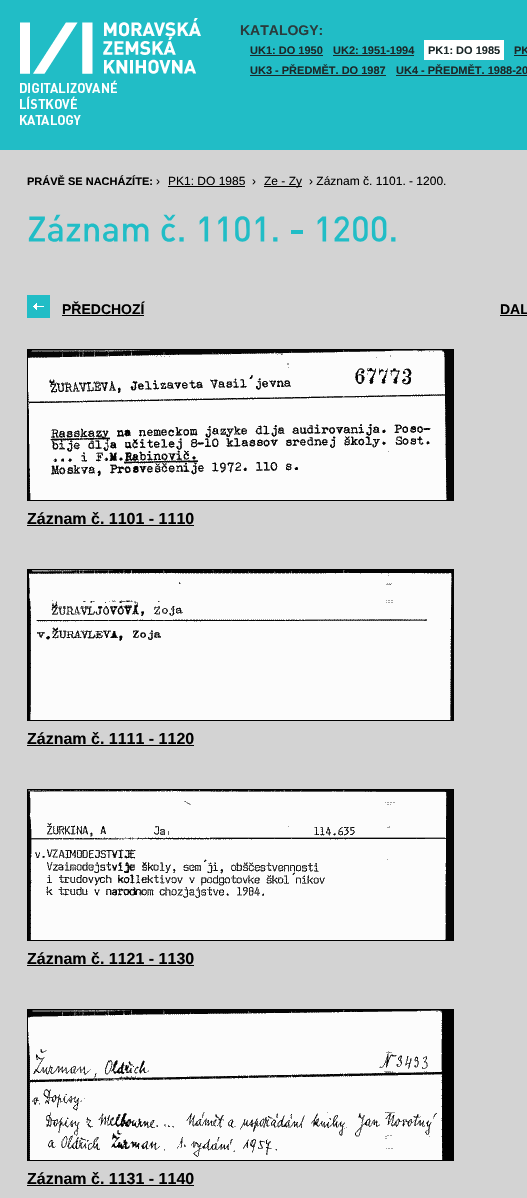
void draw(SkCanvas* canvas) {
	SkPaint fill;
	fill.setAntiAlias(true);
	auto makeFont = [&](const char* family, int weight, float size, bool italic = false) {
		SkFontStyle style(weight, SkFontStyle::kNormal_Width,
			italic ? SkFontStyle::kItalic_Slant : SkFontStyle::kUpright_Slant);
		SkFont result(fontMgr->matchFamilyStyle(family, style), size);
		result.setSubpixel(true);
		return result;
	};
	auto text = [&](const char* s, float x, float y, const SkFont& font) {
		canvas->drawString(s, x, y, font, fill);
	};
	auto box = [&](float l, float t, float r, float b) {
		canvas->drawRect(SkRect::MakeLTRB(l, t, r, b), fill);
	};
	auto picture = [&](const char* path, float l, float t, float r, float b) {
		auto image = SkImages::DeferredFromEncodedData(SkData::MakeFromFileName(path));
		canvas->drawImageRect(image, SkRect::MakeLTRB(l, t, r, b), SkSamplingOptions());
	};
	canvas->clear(0xFFD3D3D3);
	fill.setColor(0xFF21BDC6);
	box(0, 0, 527, 150);
	picture("image0.png", 20, 18, 201, 125);
	fill.setColor(0xFF1C2829);
	box(250, 55, 323, 56);
	box(333, 55, 414, 56);
	fill.setColor(0xFFFFFFFF);
	box(424, 40, 504, 60);
	fill.setColor(0xFF1C2829);
	box(514, 55, 527, 56);
	box(250, 75, 386, 76);
	box(396, 75, 527, 76);
	fill.setColor(0xFF000000);
	box(168, 186, 245, 187);
	box(264, 186, 302, 187);
	picture("image1.png", 28, 214, 149, 242);
	picture("image2.png", 161, 214, 184, 242);
	picture("image3.png", 199, 216, 278, 242);
	fill.setColor(0xFF21BDC6);
	box(291, 230, 303, 234);
	picture("image4.png", 317, 216, 396, 242);
	picture("image5.png", 27, 295, 50, 318);
	fill.setColor(0xFF000000);
	box(62, 315, 144, 316);
	box(500, 315, 527, 316);
	box(27, 349, 454, 501);
	picture("image6.png", 28, 350, 453, 500);
	box(27, 525, 194, 526);
	box(27, 569, 454, 721);
	picture("image7.png", 29, 570, 452, 720);
	box(27, 745, 194, 746);
	box(27, 789, 454, 941);
	picture("image8.png", 28, 790, 453, 940);
	box(27, 965, 194, 966);
	box(27, 1009, 454, 1161);
	picture("image9.png", 28, 1010, 443, 1160);
	box(27, 1185, 194, 1186);
	auto font1 = makeFont("Liberation Sans", 700, 14);
	fill.setColor(0xFF2A3C3D);
	text("KATALOGY:", 240, 35, font1);
	auto font2 = makeFont("Liberation Sans", 700, 11);
	fill.setColor(0xFF1C2829);
	text("UK1: DO 1950", 250, 54, font2);
	text("UK2: 1951-1994", 333, 54, font2);
	text("PK1: DO 1985", 428, 54, font2);
	text("PK", 514, 54, font2);
	text("UK3 - PŘEDMĚT. DO 1987", 250, 74, font2);
	text("UK4 - PŘEDMĚT. 1988-20", 396, 74, font2);
	fill.setColor(0xFF000000);
	text("PRÁVĚ SE NACHÁZÍTE:", 27, 185, font2);
	auto font3 = makeFont("Liberation Sans", 400, 12);
	text("›", 156, 185, font3);
	text("PK1: DO 1985", 168, 185, font3);
	text("›", 252, 185, font3);
	text("Ze - Zy", 264, 185, font3);
	text("› Záznam č. 1101. - 1200.", 309, 185, font3);
	text("PŘEDCHOZÍ", 62, 314, font1);
	text("DAL", 500, 314, font1);
	auto font4 = makeFont("Liberation Sans", 700, 16);
	text("Záznam č. 1101 - 1110", 27, 524, font4);
	text("Záznam č. 1111 - 1120", 27, 744, font4);
	text("Záznam č. 1121 - 1130", 27, 964, font4);
	text("Záznam č. 1131 - 1140", 27, 1184, font4);
}
